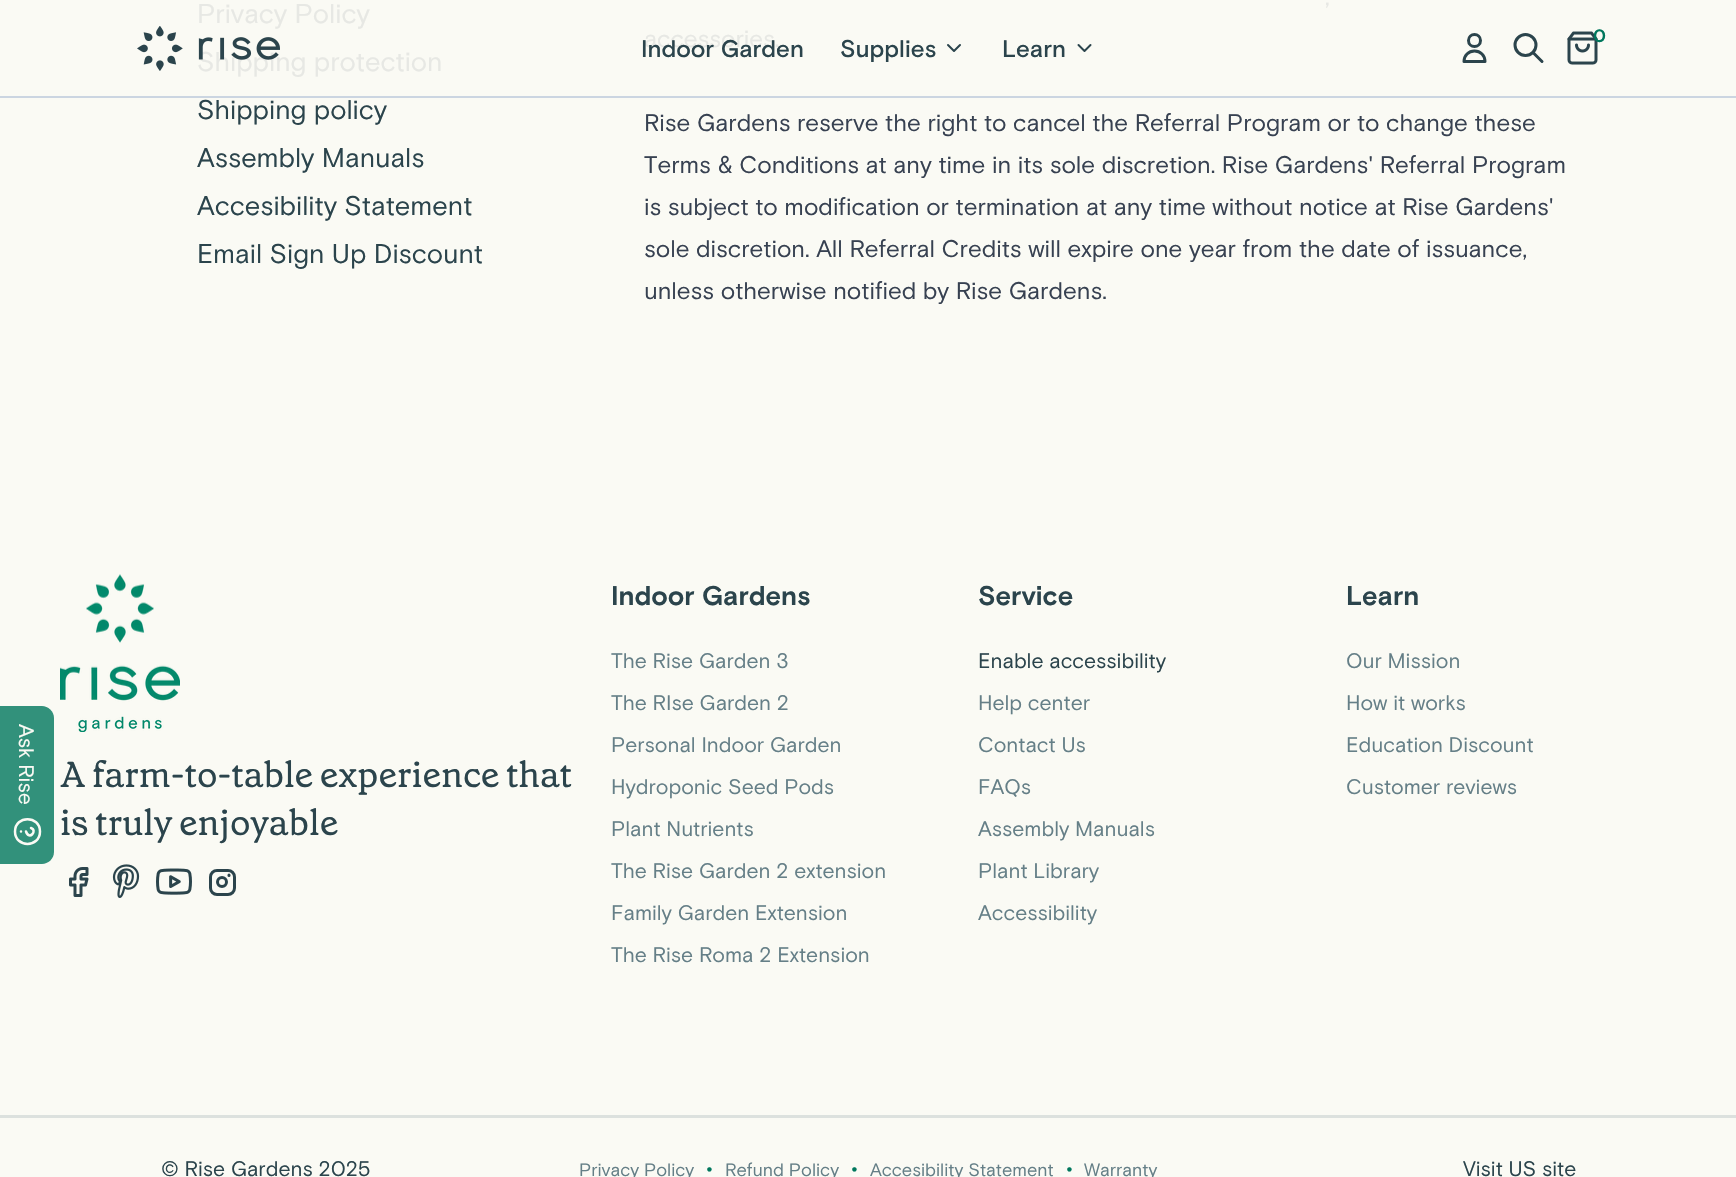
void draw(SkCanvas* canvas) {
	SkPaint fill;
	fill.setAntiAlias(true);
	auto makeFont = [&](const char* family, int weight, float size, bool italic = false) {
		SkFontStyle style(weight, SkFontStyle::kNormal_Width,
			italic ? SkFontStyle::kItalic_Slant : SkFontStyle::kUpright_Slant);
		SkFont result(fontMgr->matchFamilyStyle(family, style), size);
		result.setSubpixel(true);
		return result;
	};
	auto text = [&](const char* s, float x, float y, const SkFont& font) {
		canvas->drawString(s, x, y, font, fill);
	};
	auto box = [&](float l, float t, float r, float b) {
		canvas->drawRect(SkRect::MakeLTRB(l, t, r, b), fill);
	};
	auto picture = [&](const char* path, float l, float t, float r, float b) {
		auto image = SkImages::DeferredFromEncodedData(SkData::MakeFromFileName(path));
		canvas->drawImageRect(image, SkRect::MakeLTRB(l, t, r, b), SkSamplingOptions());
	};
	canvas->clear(0xFFFAFAF4);
	fill.setColor(0xFFCBD5E1);
	box(0, 96, 1736, 98);
	fill.setStyle(SkPaint::kStroke_Style);
	fill.setStrokeWidth(3);
	fill.setStrokeCap(SkPaint::kRound_Cap);
	fill.setStrokeJoin(SkPaint::kRound_Join);
	fill.setColor(0xFF2B444C);
	canvas->drawPath(SkPathBuilder().moveTo(1480.5f, 40.5f).cubicTo(1480.5f, 48.5f, 1468.5f, 48.5f, 1468.5f, 40.5f).cubicTo(1468.5f, 32.5f, 1480.5f, 32.5f, 1480.5f, 40.5f).close().moveTo(1474.5f, 51).cubicTo(1468.5f, 51, 1464, 55.5f, 1464, 61.5f).lineTo(1485, 61.5f).cubicTo(1485, 55.5f, 1480.5f, 51, 1474.5f, 51).close().detach(), fill);
	fill.setStrokeCap(SkPaint::kButt_Cap);
	fill.setStrokeJoin(SkPaint::kMiter_Join);
	canvas->drawCircle(1525.5f, 45, 10.5f, fill);
	fill.setStrokeCap(SkPaint::kRound_Cap);
	fill.setStrokeJoin(SkPaint::kRound_Join);
	canvas->drawPath(SkPathBuilder().moveTo(1542, 61.5f).lineTo(1533, 52.5f).detach(), fill);
	picture("image1.png", 1567, 31, 1598, 65);
	fill.setStrokeWidth(2);
	canvas->drawPath(SkPathBuilder().moveTo(948, 45).lineTo(954, 51).lineTo(960, 45).detach(), fill);
	canvas->drawPath(SkPathBuilder().moveTo(1078.5f, 45).lineTo(1084.5f, 51).lineTo(1090.5f, 45).detach(), fill);
	fill.setStyle(SkPaint::kFill_Style);
	fill.setColor(0xFF32917B);
	canvas->drawPath(SkPathBuilder().moveTo(54, 718).lineTo(54, 852).cubicTo(54, 859, 48, 864, 42, 864).lineTo(0, 864).lineTo(0, 706).lineTo(42, 706).cubicTo(48, 706, 54, 711, 54, 718).close().detach(), fill);
	fill.setStyle(SkPaint::kStroke_Style);
	fill.setStrokeWidth(2.5f);
	fill.setColor(0xFFFAFAF4);
	canvas->drawPath(SkPathBuilder().moveTo(40, 831.5f).cubicTo(40, 848, 15, 848, 15, 831.5f).cubicTo(15, 815, 40, 815, 40, 831.5f).close().moveTo(31, 828).cubicTo(38, 830.5f, 29, 841, 26, 831.5f).moveTo(21, 831.5f).lineTo(21, 831.5f).detach(), fill);
	picture("image2.png", 60, 574, 180, 732);
	picture("image3.png", 69, 867, 89, 897);
	picture("image4.png", 112, 864, 140, 898);
	picture("image5.png", 156, 868, 192, 895);
	fill.setStrokeWidth(3);
	fill.setStrokeCap(SkPaint::kButt_Cap);
	fill.setStrokeJoin(SkPaint::kMiter_Join);
	fill.setColor(0xFF2B444C);
	canvas->drawRoundRect(SkRect::MakeLTRB(210.5f, 870.5f, 234.5f, 894.5f), 6.5f, 6.5f, fill);
	canvas->drawCircle(222, 882, 4.5f, fill);
	fill.setStrokeCap(SkPaint::kRound_Cap);
	fill.setStrokeJoin(SkPaint::kRound_Join);
	canvas->drawPath(SkPathBuilder().moveTo(229, 875).lineTo(229, 875.5f).detach(), fill);
	fill.setStyle(SkPaint::kFill_Style);
	fill.setColor(0xFFDCE1DE);
	box(0, 1115, 1736, 1118);
	auto font1 = makeFont("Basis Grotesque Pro", 400, 27);
	fill.setColor(0xFFE7E8E4);
	text("Privacy Policy", 197, 23, font1);
	text("Shipping protection", 197, 71, font1);
	fill.setColor(0xFF2B444C);
	text("Shipping policy", 197, 119, font1);
	text("Assembly Manuals", 197, 167, font1);
	text("Accesibility Statement", 197, 215, font1);
	text("Email Sign Up Discount", 197, 263, font1);
	auto font2 = makeFont("Basis Grotesque Pro", 400, 24);
	fill.setColor(0xFFE7E8E4);
	text(",", 1325, 5, font2);
	text("accessories.", 644, 47, font2);
	fill.setColor(0xFF374151);
	text("Rise Gardens reserve the right to cancel the Referral Program or to change these", 644, 131, font2);
	text("Terms & Conditions at any time in its sole discretion. Rise Gardens' Referral Program", 644, 173, font2);
	text("is subject to modification or termination at any time without notice at Rise Gardens'", 644, 215, font2);
	text("sole discretion. All Referral Credits will expire one year from the date of issuance,", 644, 257, font2);
	text("unless otherwise notified by Rise Gardens.", 644, 299, font2);
	picture("image0.png", 137, 26, 280, 71);
	auto font3 = makeFont("Basis Grotesque Pro", 700, 18);
	fill.setColor(0xFF00775D);
	text("0", 1593, 42, font3);
	auto font4 = makeFont("Basis Grotesque Pro", 500, 24);
	fill.setColor(0xFF2B444C);
	text("Indoor Garden", 641, 57, font4);
	text("Supplies", 840, 57, font4);
	text("Learn", 1002, 57, font4);
	auto font5 = makeFont("Basis Grotesque Pro", 400, 21);
	fill.setColor(0xFFFAFAF4);
	canvas->save();
	canvas->rotate(90, 19, 724);
	text("Ask Rise", 19, 724, font5);
	canvas->restore();
	auto font6 = makeFont("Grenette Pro", 400, 36);
	fill.setColor(0xFF2B444C);
	text("A farm-to-table experience that", 60, 787, font6);
	text("is truly enjoyable", 60, 835, font6);
	auto font7 = makeFont("Basis Grotesque Pro", 700, 27);
	text("Indoor Gardens", 611, 605, font7);
	fill.setColor(0xFF657F87);
	text("The Rise Garden 3", 611, 668, font5);
	text("The RIse Garden 2", 611, 710, font5);
	text("Personal Indoor Garden", 611, 752, font5);
	text("Hydroponic Seed Pods", 611, 794, font5);
	text("Plant Nutrients", 611, 836, font5);
	text("The Rise Garden 2 extension", 611, 878, font5);
	text("Family Garden Extension", 611, 920, font5);
	text("The Rise Roma 2 Extension", 611, 962, font5);
	fill.setColor(0xFF2B444C);
	text("Service", 978, 605, font7);
	text("Enable accessibility", 978, 668, font5);
	fill.setColor(0xFF657F87);
	text("Help center", 978, 710, font5);
	text("Contact Us", 978, 752, font5);
	text("FAQs", 978, 794, font5);
	text("Assembly Manuals", 978, 836, font5);
	text("Plant Library", 978, 878, font5);
	text("Accessibility", 978, 920, font5);
	fill.setColor(0xFF2B444C);
	text("Learn", 1346, 605, font7);
	fill.setColor(0xFF657F87);
	text("Our Mission", 1346, 668, font5);
	text("How it works", 1346, 710, font5);
	text("Education Discount", 1346, 752, font5);
	text("Customer reviews", 1346, 794, font5);
	auto font8 = makeFont("Basis Grotesque Pro", 400, 18);
	text("Privacy Policy", 579, 1176, font8);
	fill.setColor(0xFF00775D);
	text("•", 706, 1176, font2);
	fill.setColor(0xFF657F87);
	text("Refund Policy", 725, 1176, font8);
	fill.setColor(0xFF00775D);
	text("•", 851, 1176, font2);
	fill.setColor(0xFF657F87);
	text("Accesibility Statement", 870, 1176, font8);
	fill.setColor(0xFF00775D);
	text("•", 1066, 1176, font2);
	fill.setColor(0xFF657F87);
	text("Warranty", 1084, 1176, font8);
	fill.setColor(0xFF2B444C);
	text("© Rise Gardens 2025", 161, 1176, font5);
	text("Visit US site", 1463, 1176, font5);
}
